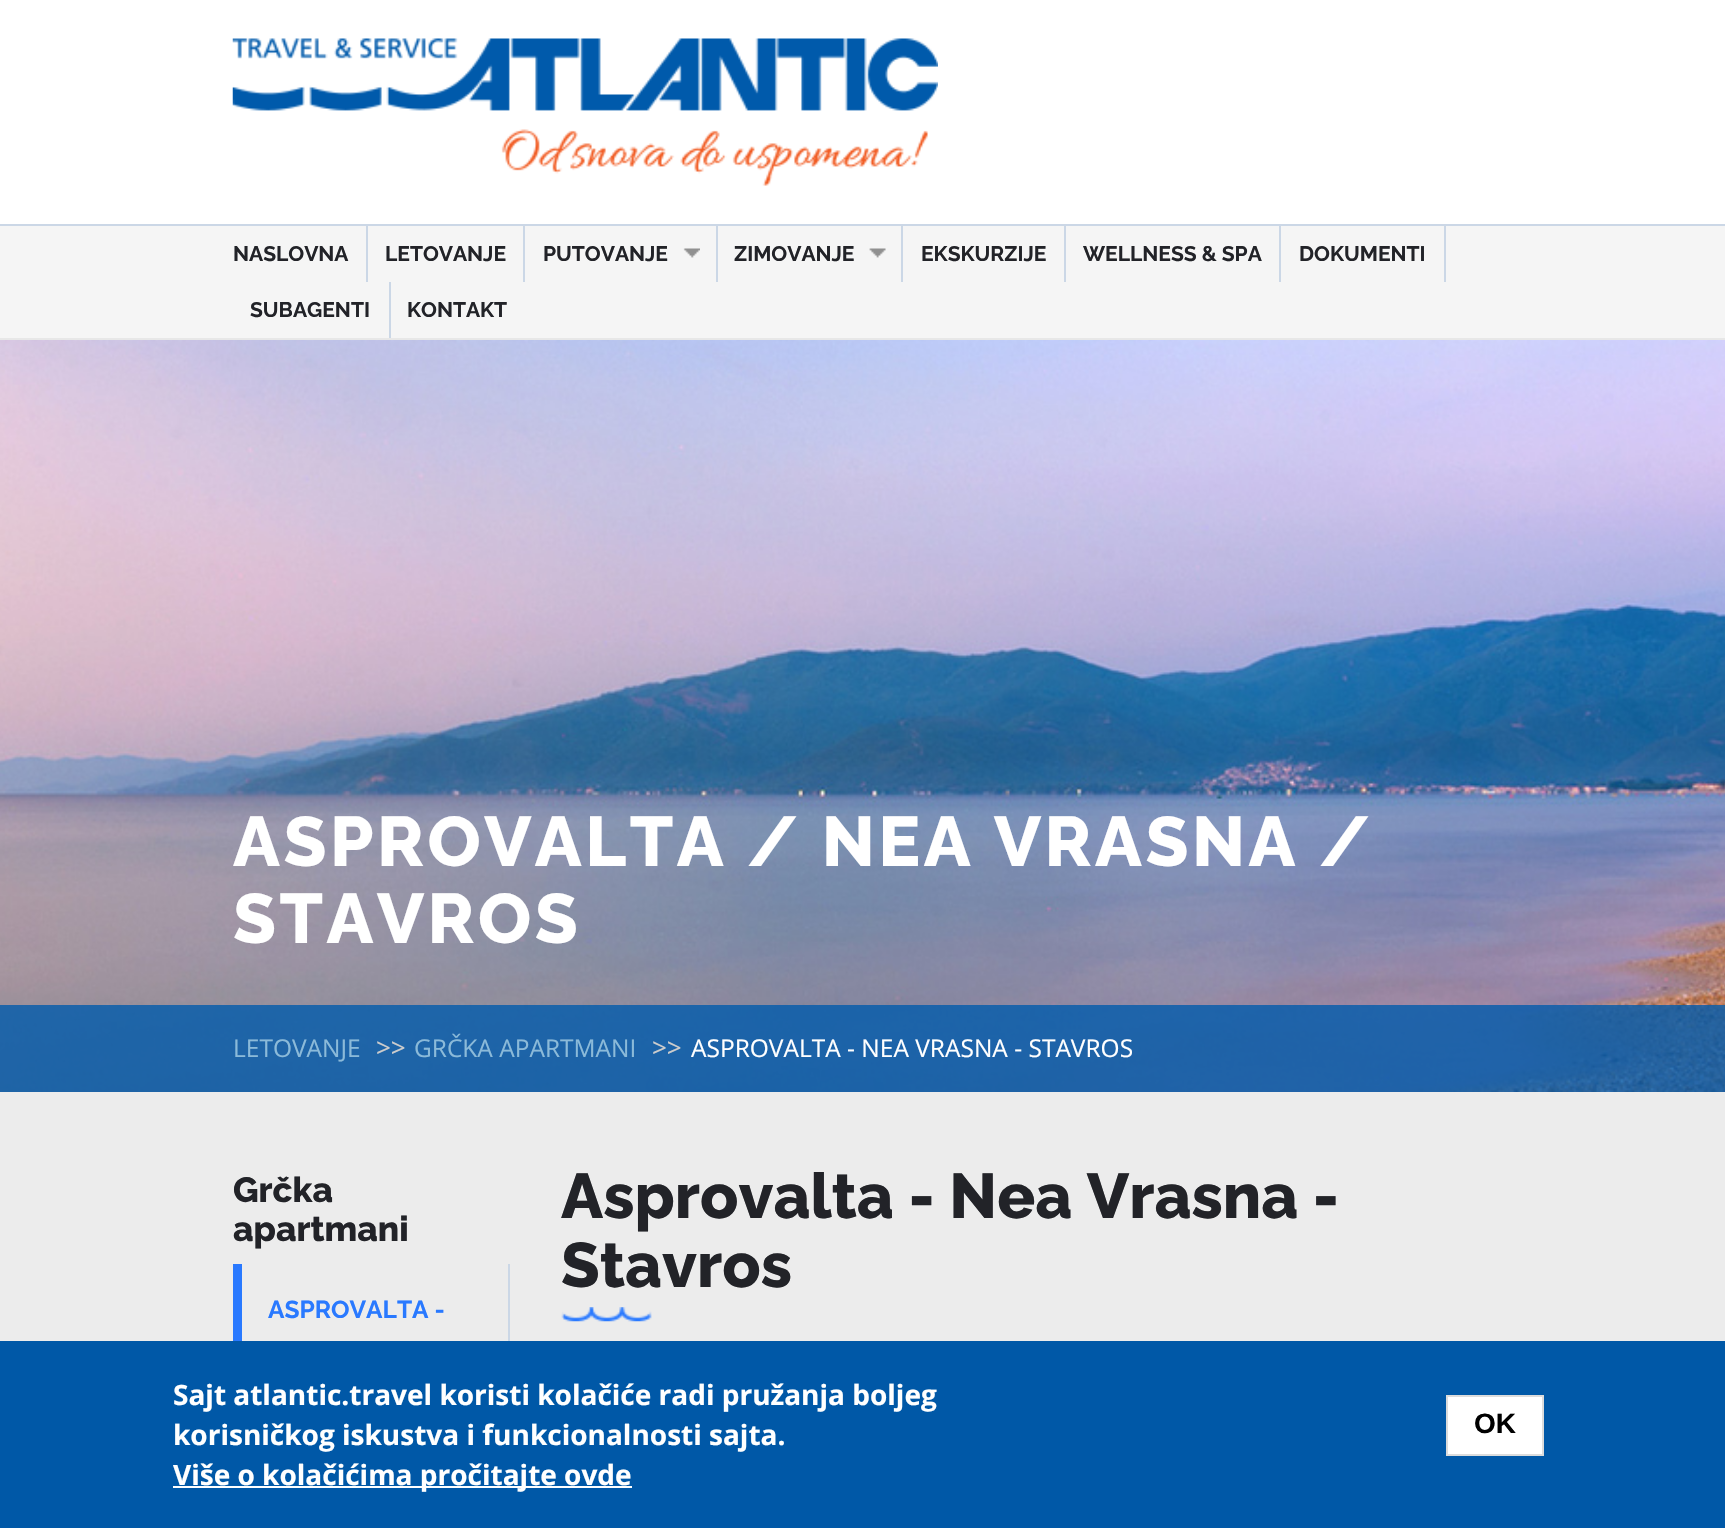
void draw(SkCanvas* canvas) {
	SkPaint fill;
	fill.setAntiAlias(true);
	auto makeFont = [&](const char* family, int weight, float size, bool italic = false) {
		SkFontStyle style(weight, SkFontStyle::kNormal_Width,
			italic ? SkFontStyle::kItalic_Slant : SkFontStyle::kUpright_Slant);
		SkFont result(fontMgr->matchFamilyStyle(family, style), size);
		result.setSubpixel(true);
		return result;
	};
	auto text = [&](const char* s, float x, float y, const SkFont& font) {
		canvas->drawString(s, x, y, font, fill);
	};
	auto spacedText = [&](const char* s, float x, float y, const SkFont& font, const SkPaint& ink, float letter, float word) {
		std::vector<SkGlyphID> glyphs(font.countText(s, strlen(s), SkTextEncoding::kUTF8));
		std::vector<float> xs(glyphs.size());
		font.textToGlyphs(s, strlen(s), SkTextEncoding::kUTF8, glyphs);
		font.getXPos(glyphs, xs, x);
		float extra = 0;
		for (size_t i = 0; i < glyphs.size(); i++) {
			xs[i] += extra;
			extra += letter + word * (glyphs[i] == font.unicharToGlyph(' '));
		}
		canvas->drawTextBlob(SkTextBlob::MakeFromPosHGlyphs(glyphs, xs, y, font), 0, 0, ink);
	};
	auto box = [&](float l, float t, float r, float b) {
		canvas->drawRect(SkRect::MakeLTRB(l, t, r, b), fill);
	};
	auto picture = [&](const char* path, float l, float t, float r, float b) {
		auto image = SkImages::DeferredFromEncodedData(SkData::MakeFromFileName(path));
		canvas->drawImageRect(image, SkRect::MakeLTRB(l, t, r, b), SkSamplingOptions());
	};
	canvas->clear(0xFFFFFFFF);
	fill.setColor(0xFFE7E7E7);
	box(0, 338, 1725, 340);
	picture("image0.png", 232, 38, 938, 186);
	fill.setColor(0xFFF5F5F5);
	box(0, 226, 1725, 338);
	fill.setColor(0xFFCBD7E6);
	box(0, 224, 1725, 226);
	box(366, 226, 368, 282);
	box(523, 226, 525, 282);
	box(716, 226, 718, 282);
	picture("image1.png", 683, 248, 700, 258);
	box(901, 226, 903, 282);
	picture("image2.png", 869, 248, 886, 258);
	box(1064, 226, 1066, 282);
	box(1279, 226, 1281, 282);
	box(1444, 226, 1446, 282);
	box(389, 282, 391, 338);
	fill.setColor(0xFFECECEC);
	box(0, 1092, 1725, 1341);
	picture("image3.png", 0, 340, 1725, 1092);
	fill.setColor(0xCC005AAB);
	box(0, 1005, 1725, 1092);
	fill.setColor(0xFFCBD7E6);
	box(508, 1264, 510, 1341);
	fill.setColor(0xFF2979FF);
	box(233, 1264, 242, 1341);
	picture("image4.png", 561, 1307, 652, 1322);
	fill.setColor(0xFF0058A7);
	box(0, 1341, 1725, 1528);
	fill.setColor(0xFFFFFFFF);
	box(173, 1486, 632, 1488);
	canvas->drawRect(SkRect::MakeLTRB(1447, 1396, 1543, 1455), fill);
	fill.setStyle(SkPaint::kStroke_Style);
	fill.setStrokeWidth(2);
	fill.setColor(0xFFDCDCDC);
	canvas->drawRect(SkRect::MakeLTRB(1447, 1396, 1543, 1455), fill);
	auto font1 = makeFont("Raleway", 700, 21);
	fill.setStyle(SkPaint::kFill_Style);
	fill.setColor(0xFF222328);
	text("NASLOVNA", 233, 261, font1);
	text("LETOVANJE", 385, 261, font1);
	text("PUTOVANJE", 543, 261, font1);
	text("ZIMOVANJE", 734, 261, font1);
	text("EKSKURZIJE", 921, 261, font1);
	text("WELLNESS & SPA", 1083, 261, font1);
	text("DOKUMENTI", 1299, 261, font1);
	text("SUBAGENTI", 250, 317, font1);
	text("KONTAKT", 407, 317, font1);
	auto font2 = makeFont("Raleway", 800, 70);
	fill.setColor(0xFFFFFFFF);
	spacedText("ASPROVALTA / NEA VRASNA /", 233, 866, font2, fill, 3.5f, 0);
	spacedText("STAVROS", 233, 943, font2, fill, 3.5f, 0);
	auto font3 = makeFont("Open Sans", 400, 24.5f);
	fill.setColor(0xFF8BBAD9);
	text("LETOVANJE", 233, 1057, font3);
	auto font4 = makeFont("Open Sans", 400, 26);
	fill.setColor(0xFFCCCCCC);
	text(">>", 376, 1057, font4);
	fill.setColor(0xFF8BBAD9);
	text("GRČKA APARTMANI", 414, 1057, font3);
	fill.setColor(0xFFCCCCCC);
	text(">>", 652, 1057, font4);
	fill.setColor(0xFFFFFFFF);
	text("ASPROVALTA - NEA VRASNA - STAVROS", 691, 1057, font3);
	auto font5 = makeFont("Raleway", 800, 35);
	fill.setColor(0xFF222328);
	text("Grčka", 233, 1202, font5);
	text("apartmani", 233, 1241, font5);
	auto font6 = makeFont("Raleway", 700, 24.5f);
	fill.setColor(0xFF2979FF);
	text("ASPROVALTA -", 268, 1318, font6);
	auto font7 = makeFont("Raleway", 800, 63);
	fill.setColor(0xFF222328);
	text("Asprovalta - Nea Vrasna -", 561, 1218, font7);
	text("Stavros", 561, 1287, font7);
	auto font8 = makeFont("Open Sans", 700, 28);
	fill.setColor(0xFFFFFFFF);
	text("Sajt atlantic.travel koristi kolačiće radi pružanja boljeg", 173, 1405, font8);
	text("korisničkog iskustva i funkcionalnosti sajta.", 173, 1445, font8);
	text("Više o kolačićima pročitajte ovde", 173, 1485, font8);
	auto font9 = makeFont("Liberation Sans", 700, 28);
	fill.setColor(0xFF000000);
	text("OK", 1474, 1433, font9);
}
